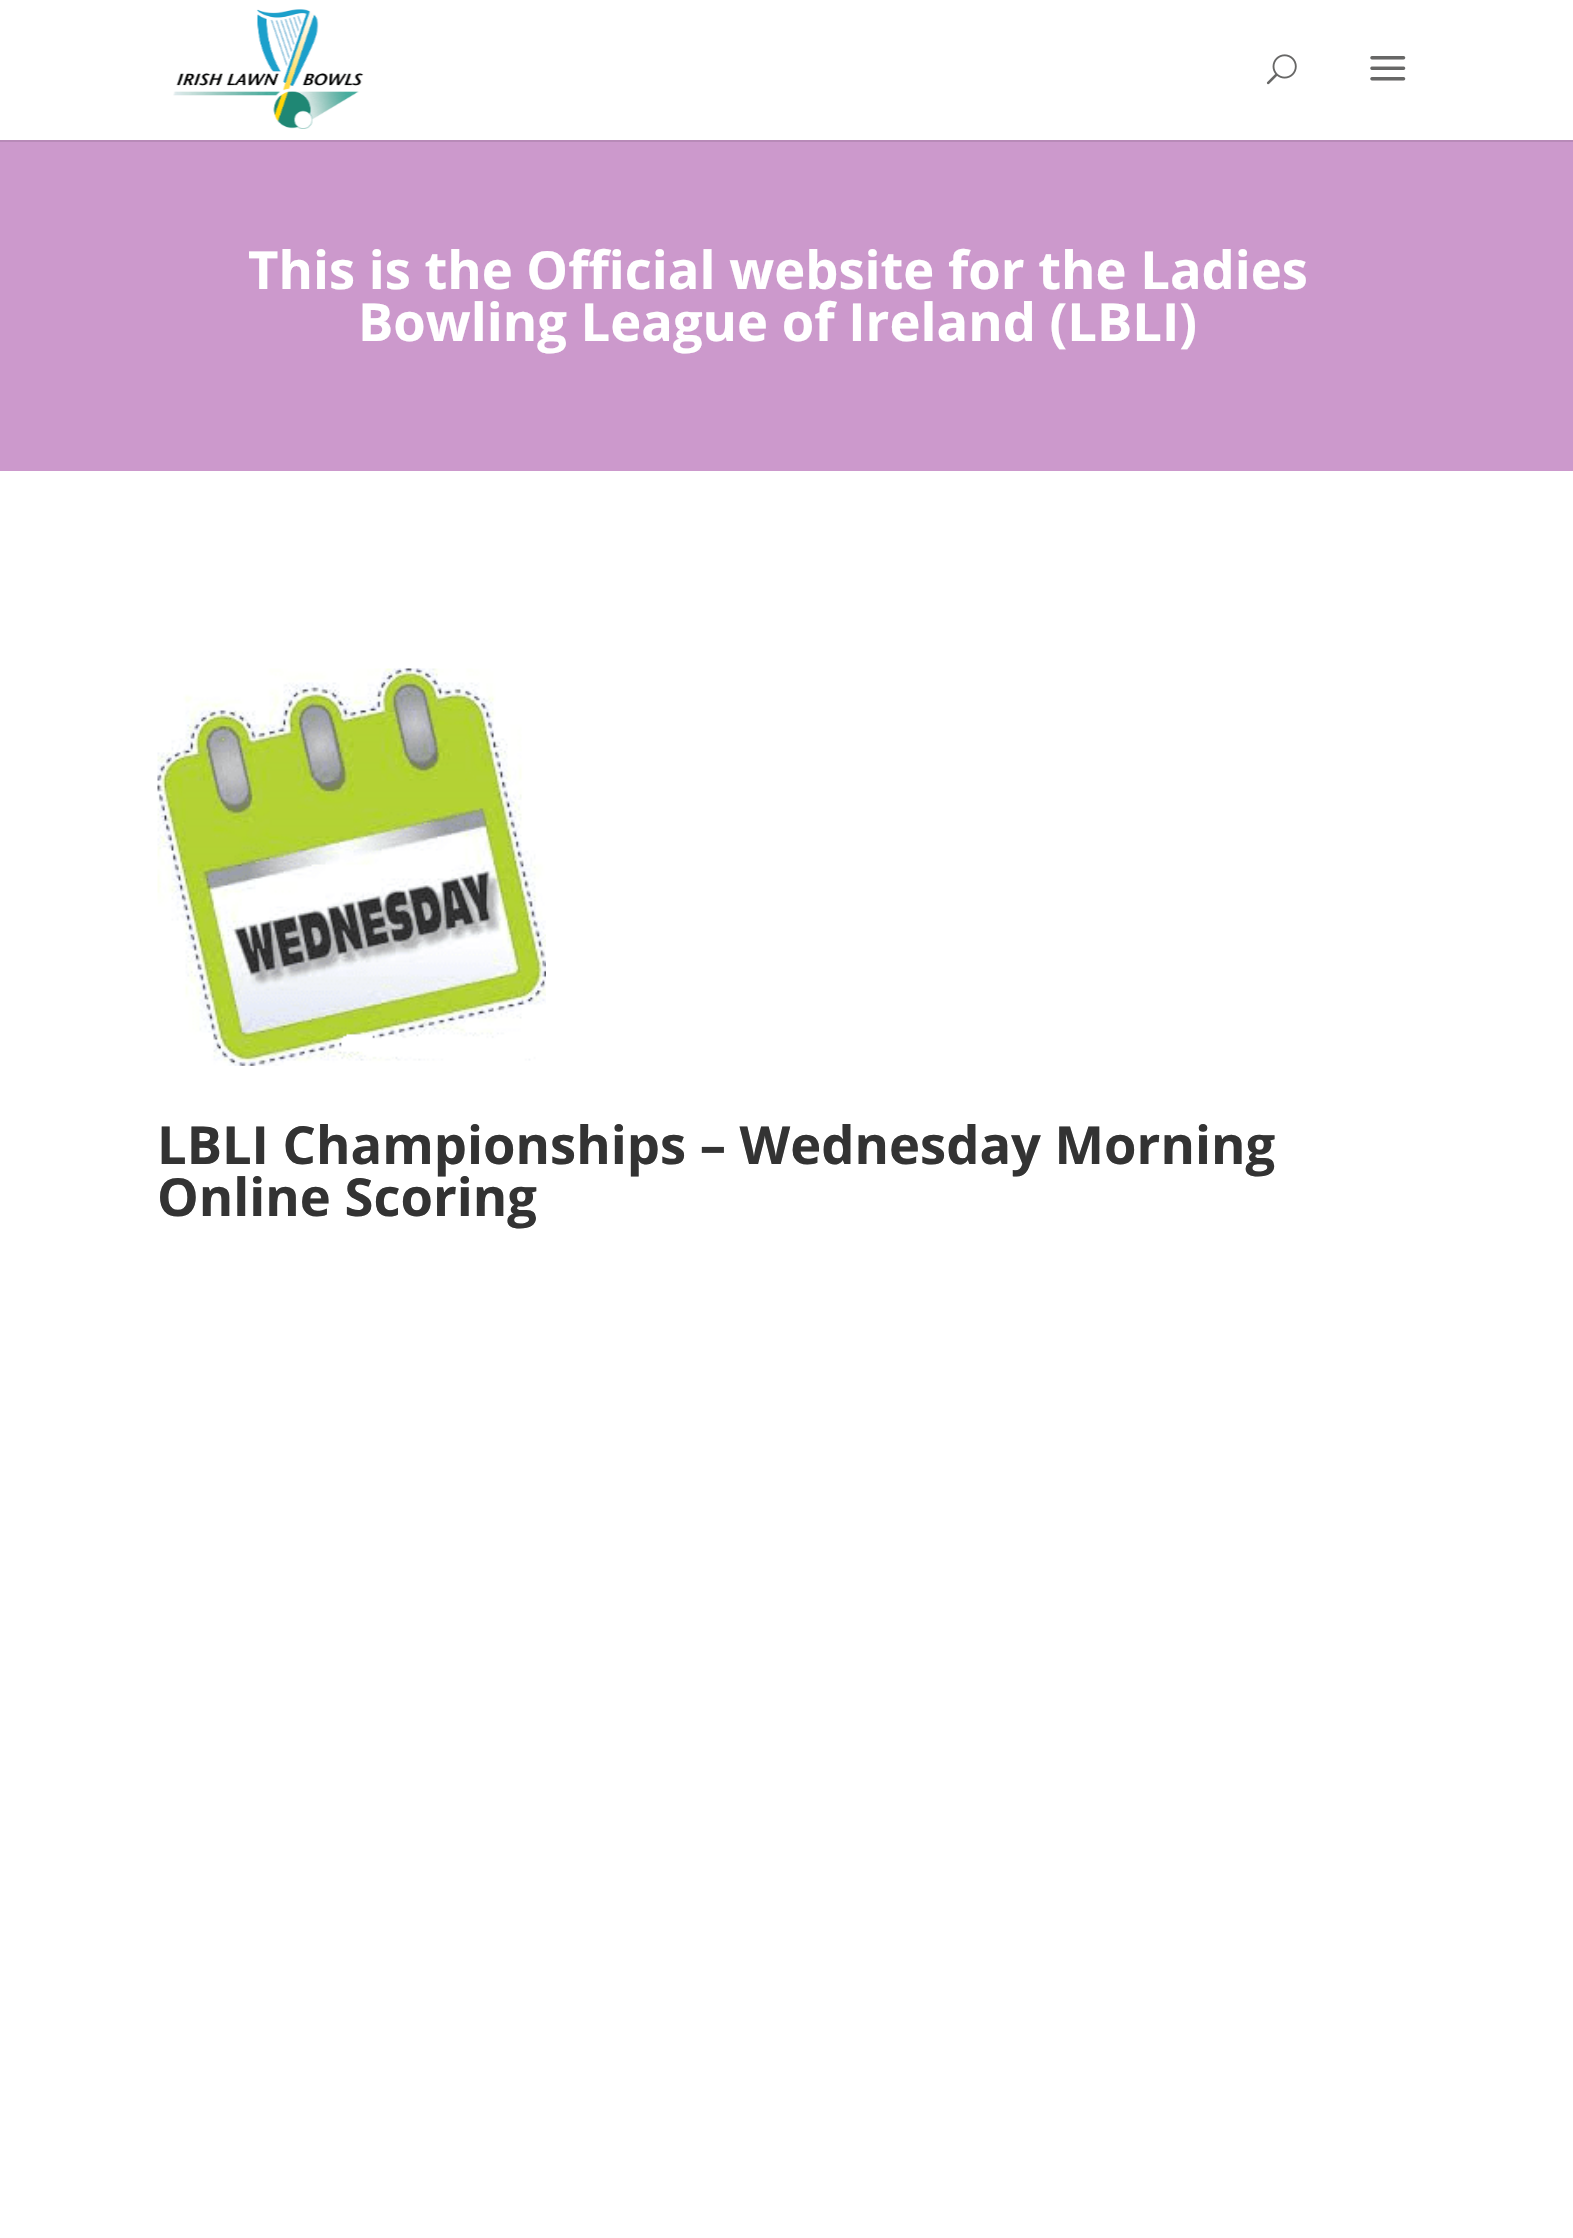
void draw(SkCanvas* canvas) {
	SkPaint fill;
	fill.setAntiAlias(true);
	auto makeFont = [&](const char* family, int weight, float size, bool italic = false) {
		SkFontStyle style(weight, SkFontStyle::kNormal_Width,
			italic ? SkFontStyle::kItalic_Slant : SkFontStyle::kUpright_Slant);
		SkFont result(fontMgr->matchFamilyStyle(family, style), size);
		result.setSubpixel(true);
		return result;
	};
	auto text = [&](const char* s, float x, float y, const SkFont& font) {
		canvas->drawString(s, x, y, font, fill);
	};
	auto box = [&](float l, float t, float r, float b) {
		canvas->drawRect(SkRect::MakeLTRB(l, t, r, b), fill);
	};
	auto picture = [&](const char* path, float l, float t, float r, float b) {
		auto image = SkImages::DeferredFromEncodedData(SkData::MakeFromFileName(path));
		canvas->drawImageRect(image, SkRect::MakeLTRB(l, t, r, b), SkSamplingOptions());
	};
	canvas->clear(0xFFCC99CC);
	fill.setColor(0xFFB88AB8);
	box(0, 140, 1573, 142);
	fill.setColor(0xFFFFFFFF);
	box(0, 0, 1573, 140);
	picture("image0.png", 173, 9, 364, 129);
	picture("image1.png", 1266, 54, 1297, 85);
	picture("image2.png", 1370, 56, 1406, 81);
	box(0, 471, 1573, 2238);
	picture("image3.png", 157, 668, 546, 1066);
	auto font1 = makeFont("Open Sans", 700, 52.5f);
	text("This is the Official website for the Ladies", 248, 289, font1);
	text("Bowling League of Ireland (LBLI)", 358, 341, font1);
	fill.setColor(0xFF333333);
	text("LBLI Championships – Wednesday Morning", 157, 1164, font1);
	text("Online Scoring", 157, 1216, font1);
}
